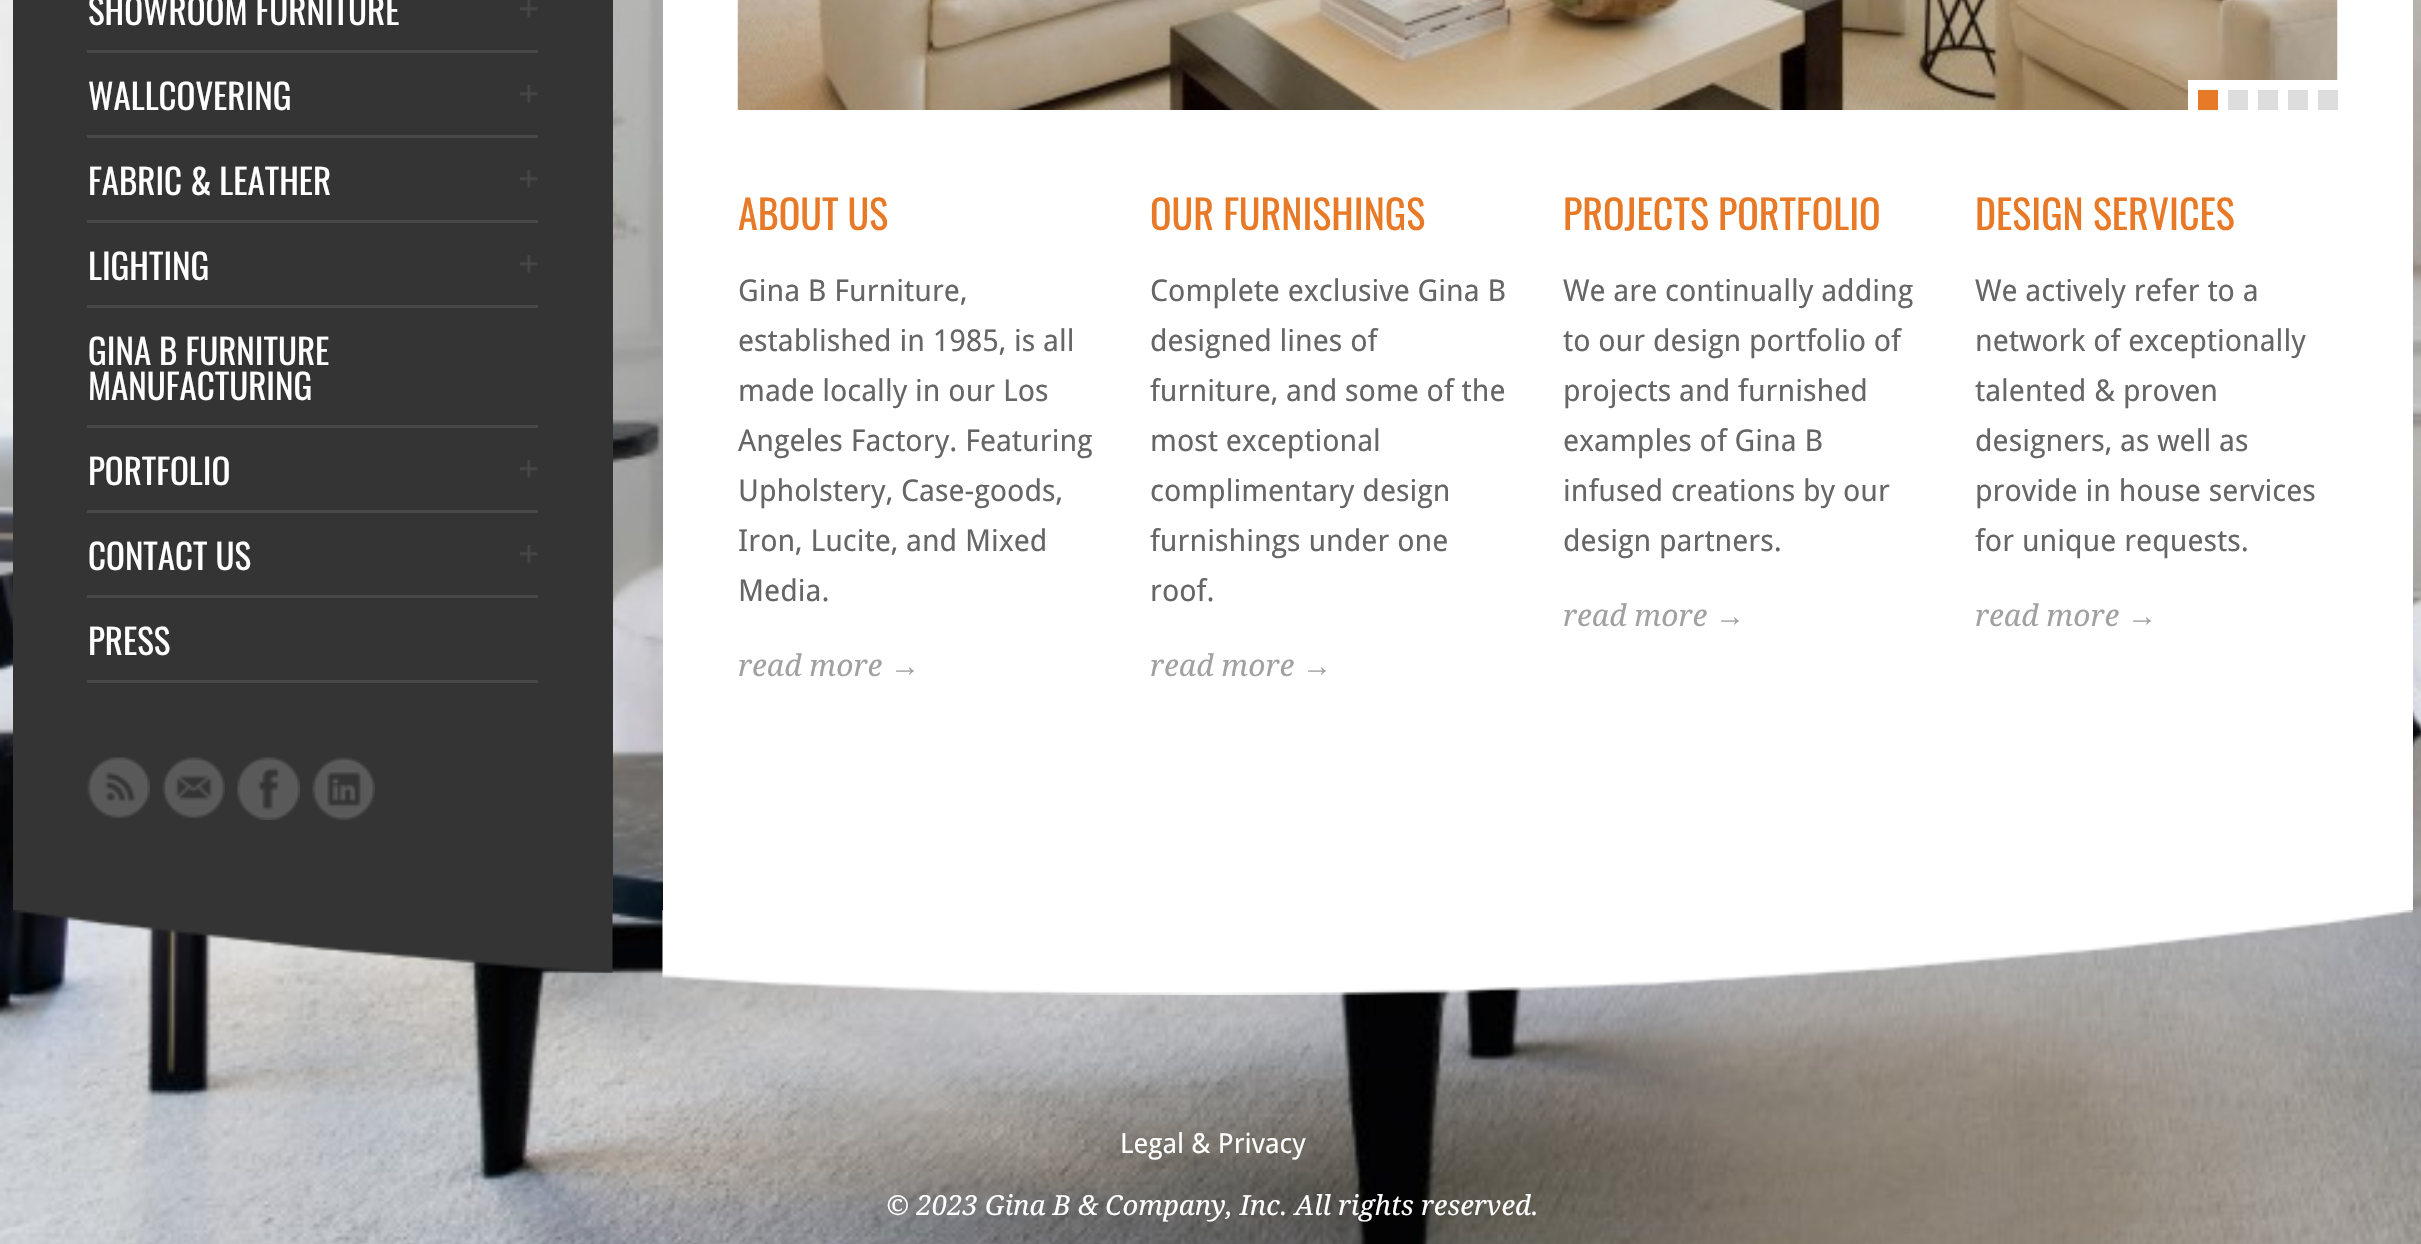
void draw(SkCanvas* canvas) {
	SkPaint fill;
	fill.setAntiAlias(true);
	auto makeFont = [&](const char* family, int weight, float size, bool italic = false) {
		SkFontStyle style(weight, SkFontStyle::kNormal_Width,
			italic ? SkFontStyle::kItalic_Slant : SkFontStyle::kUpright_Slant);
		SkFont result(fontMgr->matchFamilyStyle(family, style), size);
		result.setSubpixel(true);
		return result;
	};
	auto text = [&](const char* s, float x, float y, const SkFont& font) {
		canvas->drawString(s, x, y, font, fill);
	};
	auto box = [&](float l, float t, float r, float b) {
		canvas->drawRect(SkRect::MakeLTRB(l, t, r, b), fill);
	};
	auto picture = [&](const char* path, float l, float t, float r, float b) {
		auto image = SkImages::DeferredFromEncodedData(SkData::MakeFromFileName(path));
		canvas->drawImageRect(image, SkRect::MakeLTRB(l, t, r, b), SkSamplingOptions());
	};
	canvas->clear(0xFFFFFFFF);
	picture("image0.png", 0, 0, 2421, 1244);
	fill.setColor(0xFF343434);
	box(13, 0, 613, 910);
	fill.setColor(0xFF484848);
	box(87, 50, 538, 53);
	picture("image1.png", 520, 0, 538, 18);
	box(87, 135, 538, 138);
	picture("image1.png", 520, 85, 538, 103);
	box(87, 220, 538, 223);
	picture("image1.png", 520, 170, 538, 188);
	box(87, 305, 538, 308);
	picture("image1.png", 520, 255, 538, 273);
	box(87, 425, 538, 428);
	box(87, 510, 538, 513);
	picture("image1.png", 520, 460, 538, 478);
	box(87, 595, 538, 598);
	picture("image1.png", 520, 545, 538, 563);
	box(87, 680, 538, 683);
	picture("image2.png", 87, 757, 150, 818);
	picture("image3.png", 162, 757, 225, 818);
	picture("image4.png", 237, 757, 300, 820);
	picture("image5.png", 312, 757, 375, 820);
	picture("image6.png", 12, 910, 613, 973);
	fill.setColor(0xFFFFFFFF);
	box(663, 0, 2413, 910);
	picture("image7.png", 737, 0, 2338, 110);
	box(2188, 80, 2338, 110);
	fill.setColor(0xFFE77927);
	box(2198, 90, 2218, 110);
	fill.setColor(0xFFDDDDDD);
	box(2228, 90, 2248, 110);
	box(2258, 90, 2278, 110);
	box(2288, 90, 2308, 110);
	box(2318, 90, 2338, 110);
	picture("image8.png", 662, 910, 2413, 995);
	auto font1 = makeFont("Oswald", 400, 35);
	fill.setColor(0xFFFFFFFF);
	text("SHOWROOM FURNITURE", 88, 25, font1);
	text("WALLCOVERING", 88, 110, font1);
	text("FABRIC & LEATHER", 88, 195, font1);
	text("LIGHTING", 88, 280, font1);
	text("GINA B FURNITURE", 88, 365, font1);
	text("MANUFACTURING", 88, 400, font1);
	text("PORTFOLIO", 88, 485, font1);
	text("CONTACT US", 88, 570, font1);
	text("PRESS", 88, 655, font1);
	auto font2 = makeFont("Oswald", 400, 40);
	fill.setColor(0xFFE77927);
	text("ABOUT US", 738, 230, font2);
	auto font3 = makeFont("Droid Sans", 400, 30);
	fill.setColor(0xFF666666);
	text("Gina B Furniture,", 738, 301, font3);
	text("established in 1985, is all", 738, 351, font3);
	text("made locally in our Los", 738, 401, font3);
	text("Angeles Factory. Featuring", 738, 451, font3);
	text("Upholstery, Case-goods,", 738, 501, font3);
	text("Iron, Lucite, and Mixed", 738, 551, font3);
	text("Media.", 738, 601, font3);
	auto font4 = makeFont("Droid Serif", 400, 30, true);
	fill.setColor(0xFFA1A1A1);
	text("read more", 738, 676, font4);
	auto font5 = makeFont("Liberation Serif", 400, 30, true);
	text("→", 890, 676, font5);
	fill.setColor(0xFFE77927);
	text("OUR FURNISHINGS", 1150, 230, font2);
	fill.setColor(0xFF666666);
	text("Complete exclusive Gina B", 1150, 301, font3);
	text("designed lines of", 1150, 351, font3);
	text("furniture, and some of the", 1150, 401, font3);
	text("most exceptional", 1150, 451, font3);
	text("complimentary design", 1150, 501, font3);
	text("furnishings under one", 1150, 551, font3);
	text("roof.", 1150, 601, font3);
	fill.setColor(0xFFA1A1A1);
	text("read more", 1150, 676, font4);
	text("→", 1302, 676, font5);
	fill.setColor(0xFFE77927);
	text("PROJECTS PORTFOLIO", 1563, 230, font2);
	fill.setColor(0xFF666666);
	text("We are continually adding", 1563, 301, font3);
	text("to our design portfolio of", 1563, 351, font3);
	text("projects and furnished", 1563, 401, font3);
	text("examples of Gina B", 1563, 451, font3);
	text("infused creations by our", 1563, 501, font3);
	text("design partners.", 1563, 551, font3);
	fill.setColor(0xFFA1A1A1);
	text("read more", 1563, 626, font4);
	text("→", 1715, 626, font5);
	fill.setColor(0xFFE77927);
	text("DESIGN SERVICES", 1975, 230, font2);
	fill.setColor(0xFF666666);
	text("We actively refer to a", 1975, 301, font3);
	text("network of exceptionally", 1975, 351, font3);
	text("talented & proven", 1975, 401, font3);
	text("designers, as well as", 1975, 451, font3);
	text("provide in house services", 1975, 501, font3);
	text("for unique requests.", 1975, 551, font3);
	fill.setColor(0xFFA1A1A1);
	text("read more", 1975, 626, font4);
	text("→", 2127, 626, font5);
	auto font6 = makeFont("Droid Sans", 400, 27.5f);
	fill.setColor(0xFFFFFFFF);
	text("Legal & Privacy", 1120, 1153, font6);
	auto font7 = makeFont("Droid Serif", 400, 27.5f, true);
	text("© 2023 Gina B & Company, Inc. All rights reserved.", 886, 1215, font7);
}
